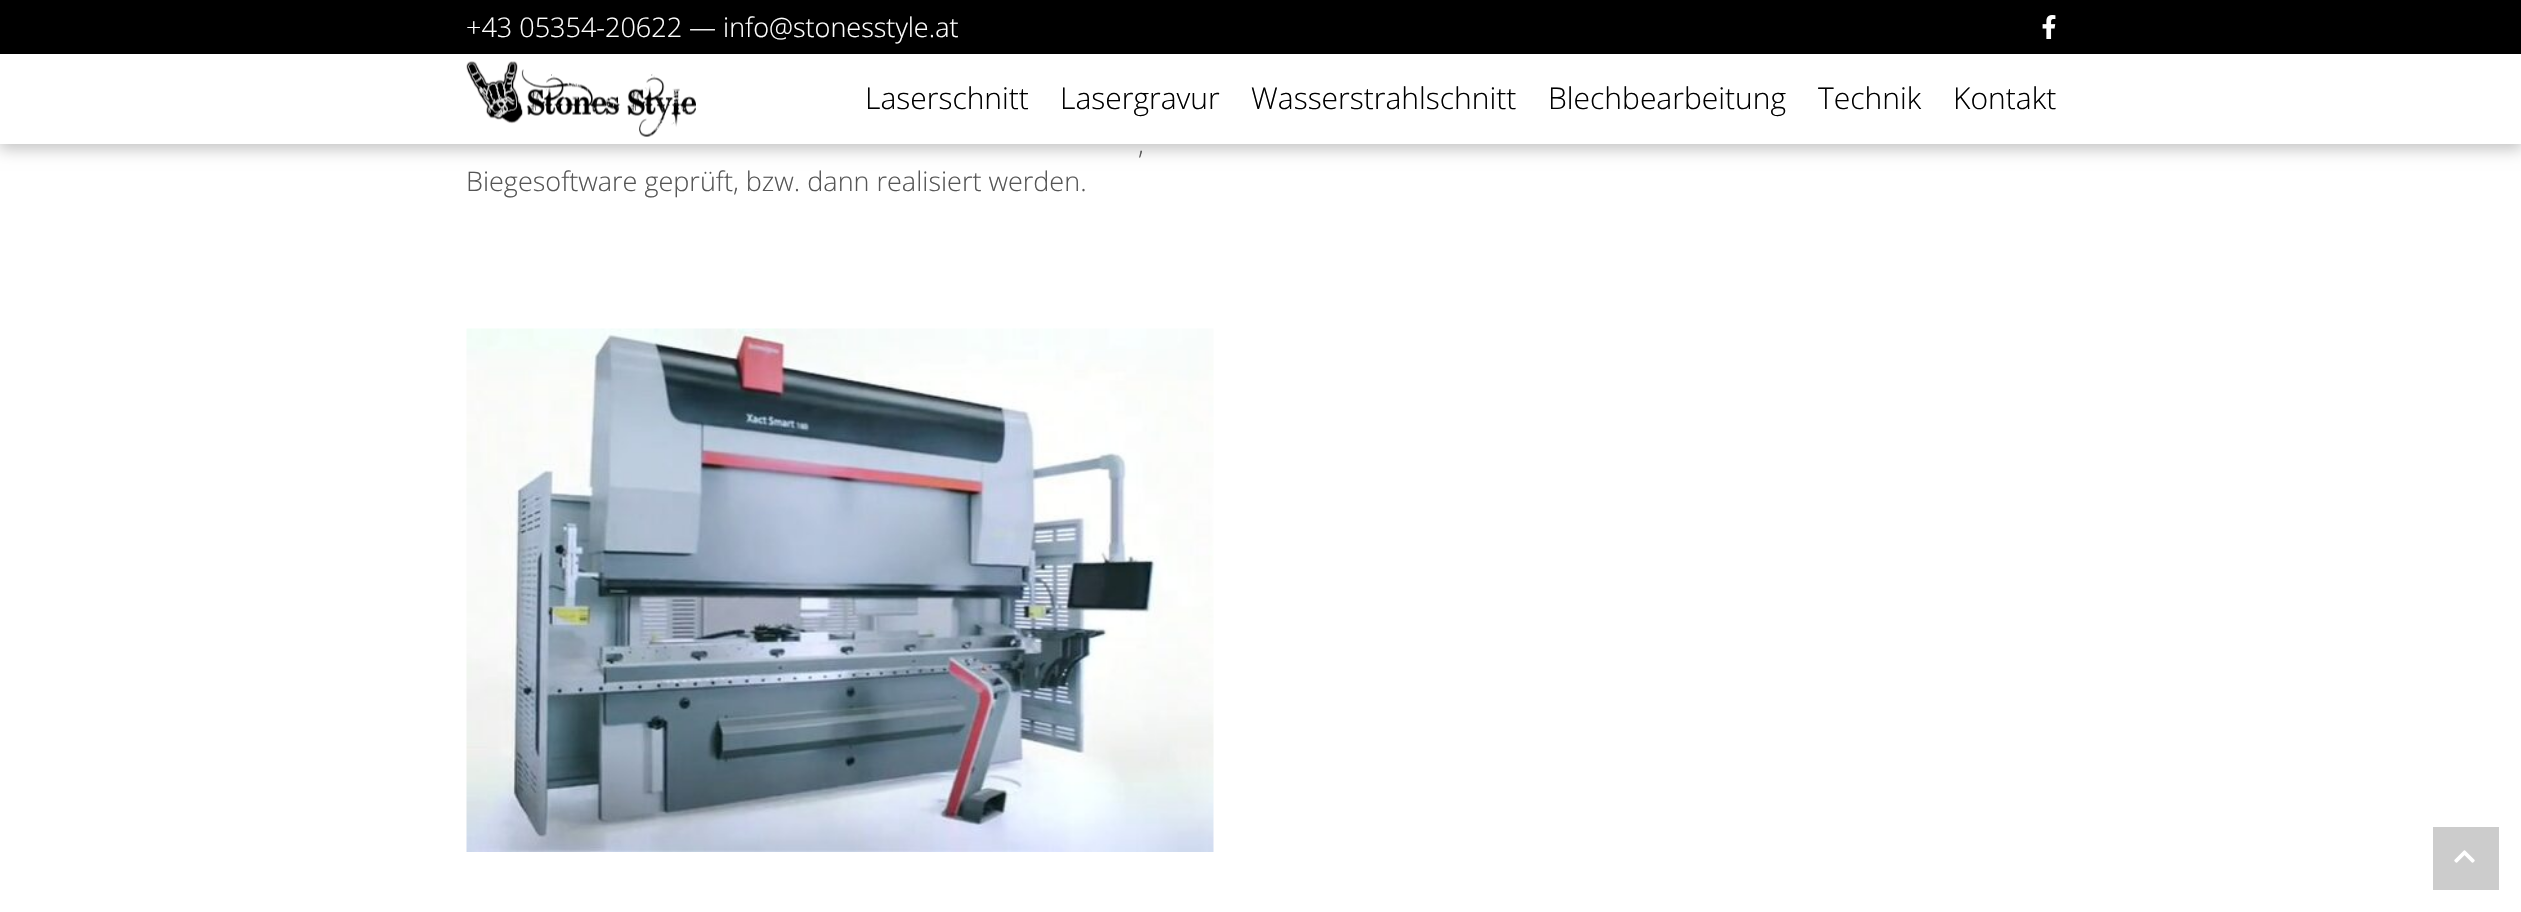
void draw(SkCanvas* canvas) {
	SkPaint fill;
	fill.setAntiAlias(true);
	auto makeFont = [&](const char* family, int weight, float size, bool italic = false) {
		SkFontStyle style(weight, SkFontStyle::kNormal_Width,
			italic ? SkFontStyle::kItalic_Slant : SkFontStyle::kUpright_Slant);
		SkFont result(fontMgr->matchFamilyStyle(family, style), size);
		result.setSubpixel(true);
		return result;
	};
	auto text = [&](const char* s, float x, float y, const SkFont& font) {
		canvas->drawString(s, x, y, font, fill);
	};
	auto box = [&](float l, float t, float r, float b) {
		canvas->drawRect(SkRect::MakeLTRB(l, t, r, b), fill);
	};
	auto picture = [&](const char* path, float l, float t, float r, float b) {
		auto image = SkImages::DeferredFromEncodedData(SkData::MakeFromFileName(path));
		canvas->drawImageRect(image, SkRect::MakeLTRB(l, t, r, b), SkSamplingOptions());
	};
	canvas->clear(0xFFFFFFFF);
	fill.setColor(0xFF000000);
	box(0, 0, 2521, 54);
	picture("image0.png", 2042, 15, 2056, 39);
	fill.setColor(0x3D000000);
	fill.setMaskFilter(SkMaskFilter::MakeBlur(kNormal_SkBlurStyle, 7.5f));
	canvas->drawRect(SkRect::MakeLTRB(-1, 56, 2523, 149), fill);
	fill.setMaskFilter(nullptr);
	fill.setColor(0xFFFFFFFF);
	box(0, 54, 2521, 144);
	picture("image1.png", 466, 61, 696, 137);
	picture("image2.png", 466, 328, 1214, 852);
	fill.setColor(0xFFCCCCCC);
	box(2433, 827, 2499, 890);
	picture("image3.png", 2454, 850, 2475, 863);
	auto font1 = makeFont("Open Sans", 300, 27);
	fill.setColor(0xFFFFFFFF);
	text("+43 05354-20622 — info@stonesstyle.at", 466, 37, font1);
	auto font2 = makeFont("Open Sans", 300, 30);
	fill.setColor(0xFF000000);
	text("Laserschnitt", 865, 109, font2);
	text("Lasergravur", 1060, 109, font2);
	text("Wasserstrahlschnitt", 1251, 109, font2);
	text("Blechbearbeitung", 1548, 109, font2);
	text("Technik", 1818, 109, font2);
	text("Kontakt", 1953, 109, font2);
	fill.setColor(0xFF555555);
	text(",", 1138, 154, font1);
	text("Biegesoftware geprüft, bzw. dann realisiert werden.", 466, 191, font1);
}
